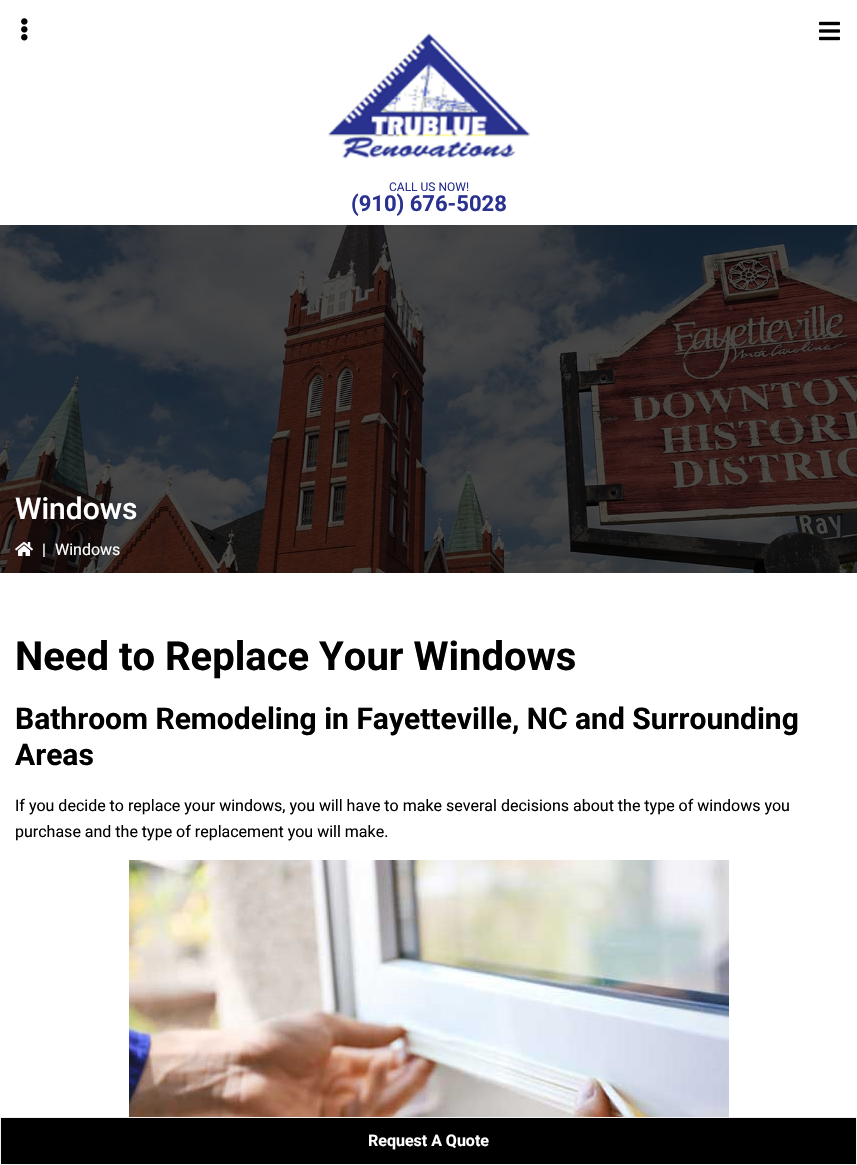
void draw(SkCanvas* canvas) {
	SkPaint fill;
	fill.setAntiAlias(true);
	auto makeFont = [&](const char* family, int weight, float size, bool italic = false) {
		SkFontStyle style(weight, SkFontStyle::kNormal_Width,
			italic ? SkFontStyle::kItalic_Slant : SkFontStyle::kUpright_Slant);
		SkFont result(fontMgr->matchFamilyStyle(family, style), size);
		result.setSubpixel(true);
		return result;
	};
	auto text = [&](const char* s, float x, float y, const SkFont& font) {
		canvas->drawString(s, x, y, font, fill);
	};
	auto box = [&](float l, float t, float r, float b) {
		canvas->drawRect(SkRect::MakeLTRB(l, t, r, b), fill);
	};
	auto picture = [&](const char* path, float l, float t, float r, float b) {
		auto image = SkImages::DeferredFromEncodedData(SkData::MakeFromFileName(path));
		canvas->drawImageRect(image, SkRect::MakeLTRB(l, t, r, b), SkSamplingOptions());
	};
	canvas->clear(0xFFFFFFFF);
	picture("image3.png", 0, 225, 857, 573);
	fill.setColor(0x0D000000);
	fill.setMaskFilter(SkMaskFilter::MakeBlur(kNormal_SkBlurStyle, 10));
	canvas->drawRect(SkRect::MakeLTRB(0, 0, 857, 225), fill);
	fill.setMaskFilter(nullptr);
	fill.setColor(0xFFFFFFFF);
	box(0, 0, 857, 225);
	picture("image0.png", 21, 18, 28, 41);
	picture("image1.png", 328, 33, 530, 159);
	picture("image2.png", 819, 21, 840, 41);
	picture("image4.png", 15, 542, 33, 556);
	picture("image5.png", 129, 860, 729, 1117);
	fill.setColor(0xFF000000);
	canvas->drawRect(SkRect::MakeLTRB(0.5f, 1117.5f, 856.5f, 1164.5f), fill);
	fill.setStyle(SkPaint::kStroke_Style);
	fill.setStrokeWidth(1);
	fill.setColor(0xFFF0F0F0);
	canvas->drawRect(SkRect::MakeLTRB(0.5f, 1117.5f, 856.5f, 1164.5f), fill);
	auto font1 = makeFont("Roboto", 400, 12);
	fill.setStyle(SkPaint::kFill_Style);
	fill.setColor(0xFF29328E);
	text("CALL US NOW!", 389, 191, font1);
	auto font2 = makeFont("Roboto", 700, 22);
	text("(910) 676-5028", 351, 211, font2);
	auto font3 = makeFont("Roboto", 500, 30);
	fill.setColor(0xFFFFFFFF);
	text("Windows", 15, 519, font3);
	auto font4 = makeFont("Roboto", 400, 16);
	text("|", 42, 555, font4);
	text("Windows", 55, 555, font4);
	auto font5 = makeFont("Roboto", 700, 40);
	fill.setColor(0xFF000000);
	text("Need to Replace Your Windows", 15, 670, font5);
	auto font6 = makeFont("Roboto", 700, 30);
	text("Bathroom Remodeling in Fayetteville, NC and Surrounding", 15, 729, font6);
	text("Areas", 15, 765, font6);
	text("If you decide to replace your windows, you will have to make several decisions about the type of windows you", 15, 811, font4);
	text("purchase and the type of replacement you will make.", 15, 837, font4);
	auto font7 = makeFont("Roboto", 700, 16);
	fill.setColor(0xFFFFFFFF);
	text("Request A Quote", 368, 1146, font7);
}
